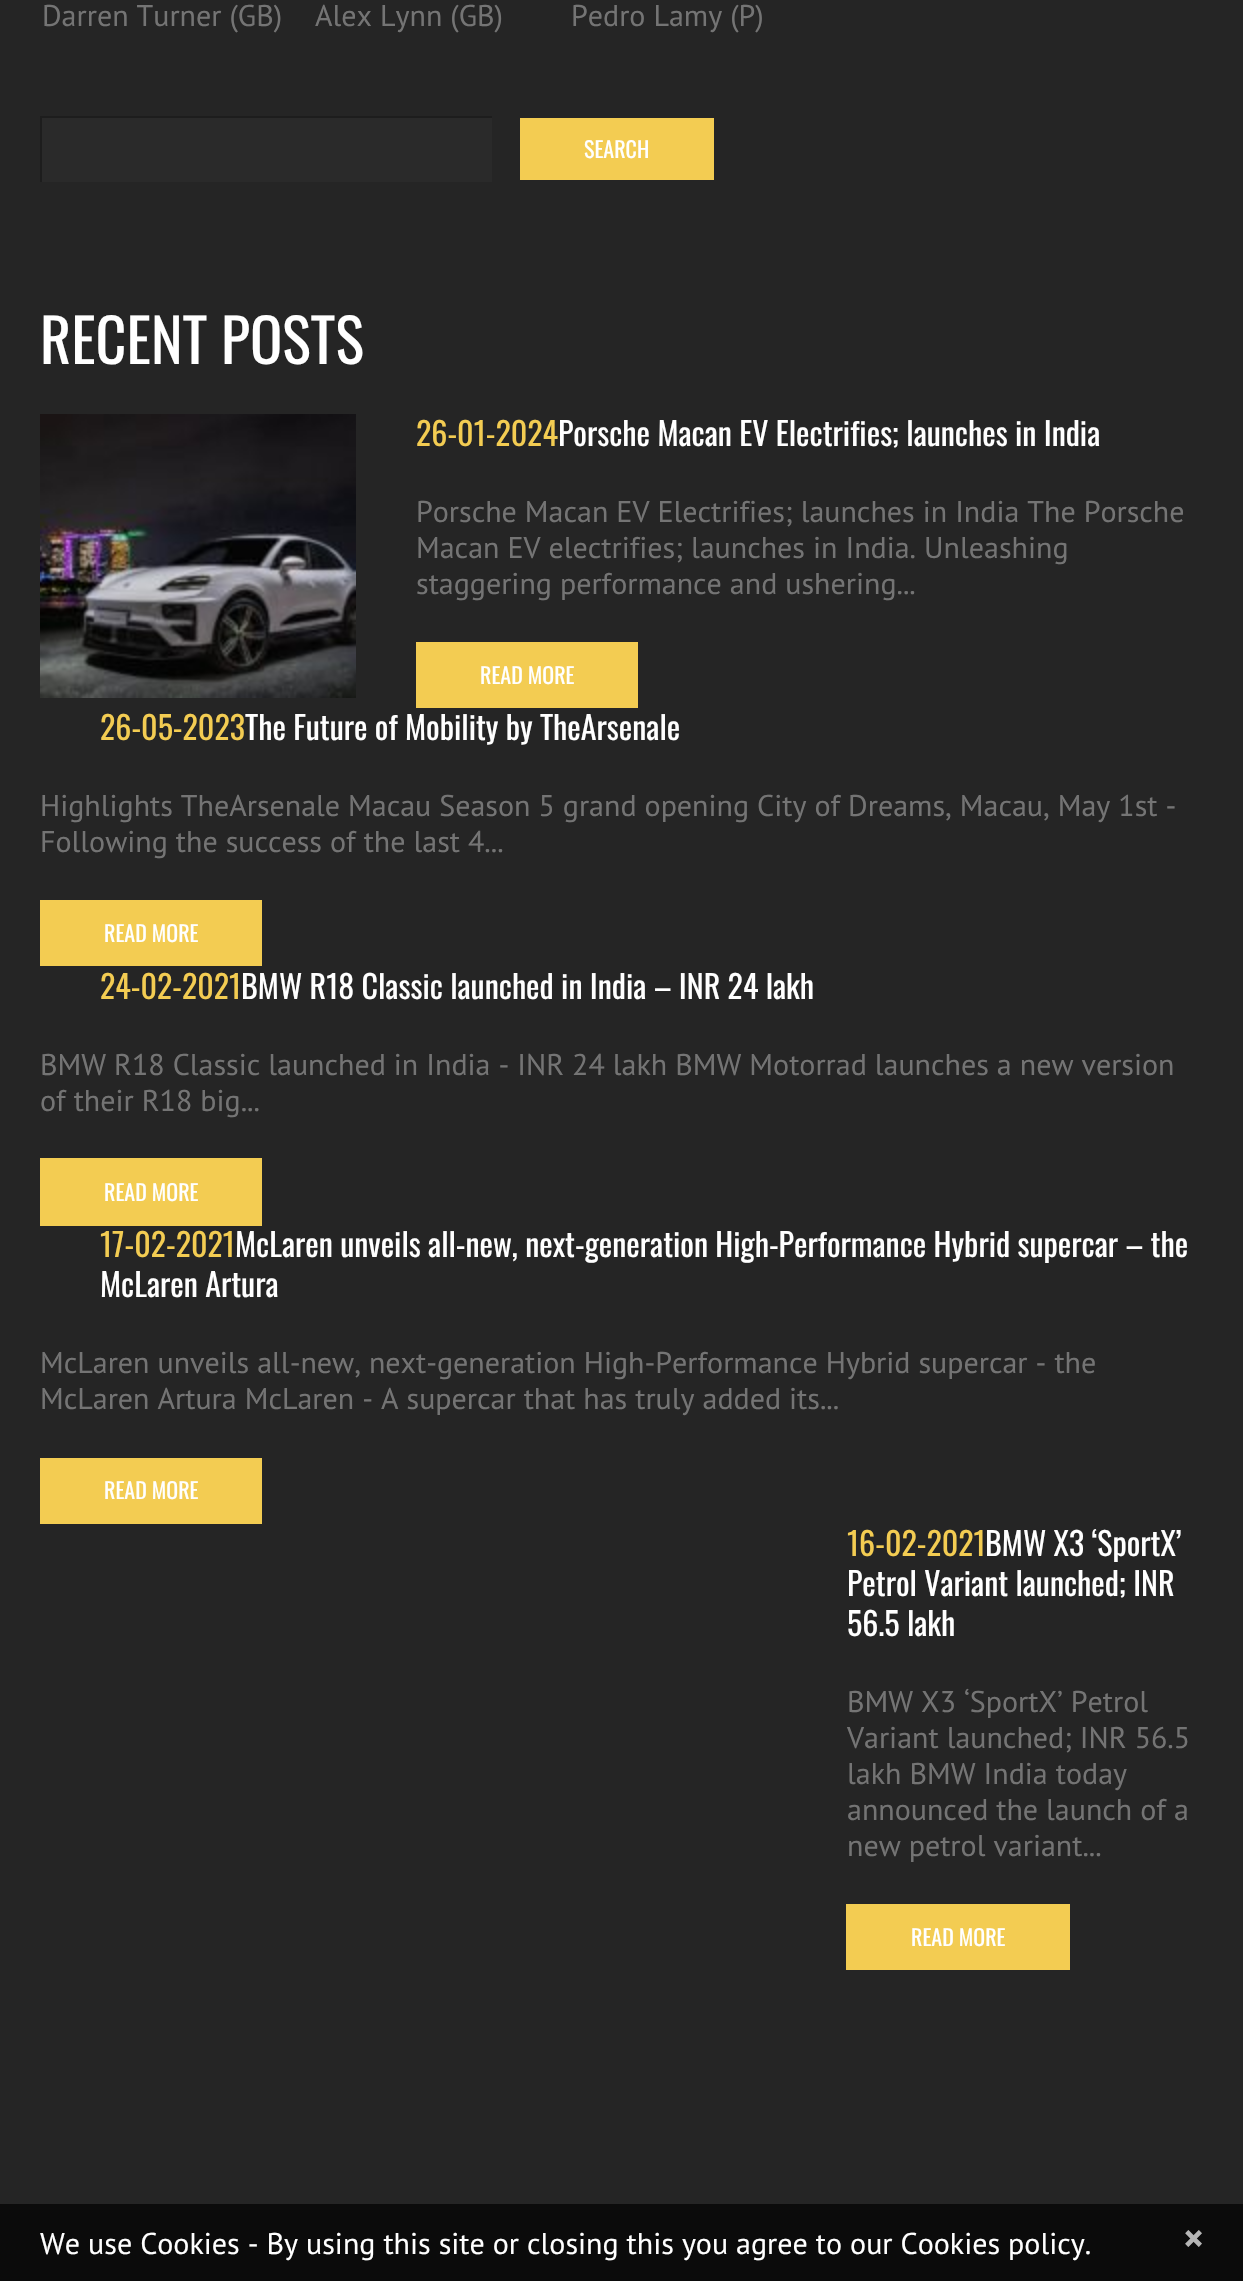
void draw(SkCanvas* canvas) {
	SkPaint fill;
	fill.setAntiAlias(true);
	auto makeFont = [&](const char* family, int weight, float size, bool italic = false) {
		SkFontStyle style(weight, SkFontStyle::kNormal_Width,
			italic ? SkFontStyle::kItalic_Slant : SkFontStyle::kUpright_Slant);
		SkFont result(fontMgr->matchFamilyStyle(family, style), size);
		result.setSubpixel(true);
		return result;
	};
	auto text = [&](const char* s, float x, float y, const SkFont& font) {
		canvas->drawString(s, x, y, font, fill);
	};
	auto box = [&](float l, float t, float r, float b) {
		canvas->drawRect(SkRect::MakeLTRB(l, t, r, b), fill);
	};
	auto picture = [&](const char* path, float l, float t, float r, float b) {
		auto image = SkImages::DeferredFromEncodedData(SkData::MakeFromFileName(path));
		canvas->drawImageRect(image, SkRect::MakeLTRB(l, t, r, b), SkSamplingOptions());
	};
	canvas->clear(0xFF252525);
	fill.setColor(0xFF2A2A2A);
	box(42, 118, 492, 182);
	canvas->save();
	canvas->clipRect(SkRect::MakeLTRB(40, 116, 492, 182));
	fill.setColor(0xFF1D1D1D);
	canvas->drawPath(SkPathBuilder(SkPathFillType::kEvenOdd).moveTo(-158, -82).lineTo(690, -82).lineTo(690, 380).lineTo(-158, 380).close().moveTo(42, 118).lineTo(494, 118).lineTo(494, 184).lineTo(42, 184).close().detach(), fill);
	canvas->restore();
	fill.setColor(0xFFF3CC52);
	box(520, 118, 714, 180);
	picture("image0.png", 40, 414, 356, 698);
	box(416, 642, 638, 708);
	box(40, 900, 262, 966);
	box(40, 1158, 262, 1226);
	box(40, 1458, 262, 1524);
	box(846, 1904, 1070, 1970);
	fill.setColor(0xFF0B0B0B);
	box(0, 2204, 1243, 2281);
	auto font1 = makeFont("PT Sans", 400, 30);
	fill.setColor(0xFF747474);
	text("Darren Turner (GB)", 42, 26, font1);
	text("Alex Lynn (GB)", 315, 26, font1);
	text("Pedro Lamy (P)", 571, 26, font1);
	auto font2 = makeFont("Oswald", 400, 22);
	fill.setColor(0xFFFFFFFF);
	text("SEARCH", 584, 158, font2);
	auto font3 = makeFont("Oswald", 400, 60);
	text("RECENT POSTS", 40, 364, font3);
	auto font4 = makeFont("Oswald", 400, 32);
	fill.setColor(0xFFF3CC52);
	text("26-01-2024", 416, 446, font4);
	fill.setColor(0xFFFFFFFF);
	text("Porsche Macan EV Electrifies; launches in India", 558, 446, font4);
	fill.setColor(0xFF747474);
	text("Porsche Macan EV Electrifies; launches in India The Porsche", 416, 522, font1);
	text("Macan EV electrifies; launches in India. Unleashing", 416, 558, font1);
	text("staggering performance and ushering...", 416, 594, font1);
	fill.setColor(0xFFFFFFFF);
	text("READ MORE", 480, 684, font2);
	fill.setColor(0xFFF3CC52);
	text("26-05-2023", 100, 740, font4);
	fill.setColor(0xFFFFFFFF);
	text("The Future of Mobility by TheArsenale", 245, 740, font4);
	fill.setColor(0xFF747474);
	text("Highlights TheArsenale Macau Season 5 grand opening City of Dreams, Macau, May 1st -", 40, 816, font1);
	text("Following the success of the last 4...", 40, 852, font1);
	fill.setColor(0xFFFFFFFF);
	text("READ MORE", 104, 942, font2);
	fill.setColor(0xFFF3CC52);
	text("24-02-2021", 100, 999, font4);
	fill.setColor(0xFFFFFFFF);
	text("BMW R18 Classic launched in India – INR 24 lakh", 241, 999, font4);
	fill.setColor(0xFF747474);
	text("BMW R18 Classic launched in India - INR 24 lakh BMW Motorrad launches a new version", 40, 1075, font1);
	text("of their R18 big...", 40, 1111, font1);
	fill.setColor(0xFFFFFFFF);
	text("READ MORE", 104, 1201, font2);
	fill.setColor(0xFFF3CC52);
	text("17-02-2021", 100, 1257, font4);
	fill.setColor(0xFFFFFFFF);
	text("McLaren unveils all-new, next-generation High-Performance Hybrid supercar – the", 235, 1257, font4);
	text("McLaren Artura", 100, 1297, font4);
	fill.setColor(0xFF747474);
	text("McLaren unveils all-new, next-generation High-Performance Hybrid supercar - the", 40, 1373, font1);
	text("McLaren Artura McLaren - A supercar that has truly added its...", 40, 1409, font1);
	fill.setColor(0xFFFFFFFF);
	text("READ MORE", 104, 1499, font2);
	fill.setColor(0xFFF3CC52);
	text("16-02-2021", 847, 1556, font4);
	fill.setColor(0xFFFFFFFF);
	text("BMW X3 ‘SportX’", 985, 1556, font4);
	text("Petrol Variant launched; INR", 847, 1596, font4);
	text("56.5 lakh", 847, 1636, font4);
	fill.setColor(0xFF747474);
	text("BMW X3 ‘SportX’ Petrol", 847, 1712, font1);
	text("Variant launched; INR 56.5", 847, 1748, font1);
	text("lakh BMW India today", 847, 1784, font1);
	text("announced the launch of a", 847, 1820, font1);
	text("new petrol variant...", 847, 1856, font1);
	fill.setColor(0xFFFFFFFF);
	text("READ MORE", 911, 1946, font2);
	text("We use Cookies - By using this site or closing this you agree to our Cookies policy.", 40, 2254, font1);
	auto font5 = makeFont("PT Sans", 700, 40);
	fill.setColor(0xFFB6B6B6);
	text("×", 1183, 2252, font5);
}
